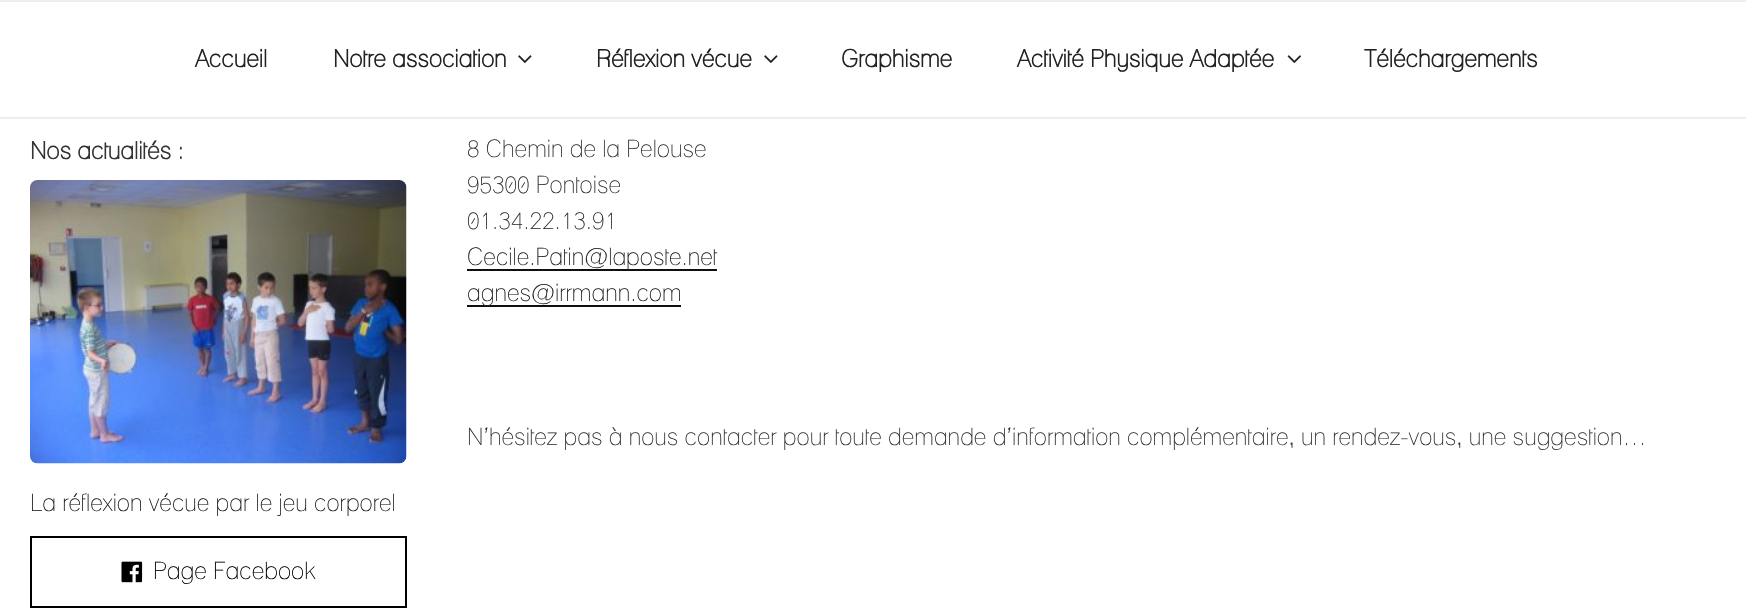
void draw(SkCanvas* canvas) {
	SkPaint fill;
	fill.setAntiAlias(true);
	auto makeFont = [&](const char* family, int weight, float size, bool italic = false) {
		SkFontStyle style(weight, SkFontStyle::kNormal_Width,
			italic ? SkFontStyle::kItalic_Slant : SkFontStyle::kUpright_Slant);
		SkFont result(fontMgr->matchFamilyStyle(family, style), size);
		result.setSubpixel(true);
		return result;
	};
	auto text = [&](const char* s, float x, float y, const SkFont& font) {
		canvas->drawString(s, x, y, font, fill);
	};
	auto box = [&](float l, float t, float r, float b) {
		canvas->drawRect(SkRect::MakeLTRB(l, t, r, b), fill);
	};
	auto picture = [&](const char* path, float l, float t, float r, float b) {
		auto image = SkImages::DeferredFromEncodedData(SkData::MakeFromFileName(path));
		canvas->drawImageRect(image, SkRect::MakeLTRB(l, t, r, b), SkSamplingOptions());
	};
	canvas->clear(0xFFFFFFFF);
	fill.setColor(0xFFEEEEEE);
	box(0, 0, 1746, 2);
	box(0, 117, 1746, 119);
	picture("image0.png", 518, 55, 532, 63);
	picture("image0.png", 764, 55, 778, 63);
	picture("image1.png", 1287, 55, 1301, 63);
	picture("image2.png", 30, 180, 407, 464);
	fill.setStyle(SkPaint::kStroke_Style);
	fill.setStrokeWidth(2);
	fill.setColor(0xFF000000);
	canvas->drawRect(SkRect::MakeLTRB(31, 537, 406, 607), fill);
	picture("image3.png", 121, 561, 143, 583);
	fill.setStyle(SkPaint::kFill_Style);
	fill.setColor(0xFF0F0F0F);
	box(467, 269, 717, 271);
	box(467, 305, 681, 307);
	auto font1 = makeFont("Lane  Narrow", 700, 24);
	fill.setColor(0xFF222222);
	text("Accueil", 195, 67, font1);
	text("Notre association", 333, 67, font1);
	text("Réflexion vécue", 596, 67, font1);
	text("Graphisme", 841, 67, font1);
	text("Activité Physique Adaptée", 1017, 67, font1);
	text("Téléchargements", 1364, 67, font1);
	fill.setColor(0xFF333333);
	text("Nos actualités :", 30, 159, font1);
	auto font2 = makeFont("Lane  Narrow", 400, 24);
	fill.setColor(0xFF222222);
	text("La réflexion vécue par le jeu corporel", 30, 511, font2);
	fill.setColor(0xFF000000);
	text("Page Facebook", 153, 579, font2);
	fill.setColor(0xFF333333);
	text("8 Chemin de la Pelouse", 467, 157, font2);
	text("95300 Pontoise", 467, 193, font2);
	text("01.34.22.13.91", 467, 229, font2);
	fill.setColor(0xFF222222);
	text("Cecile.Patin@laposte.net", 467, 265, font2);
	text("agnes@irrmann.com", 467, 301, font2);
	fill.setColor(0xFF333333);
	text("N’hésitez pas à nous contacter pour toute demande d’information complémentaire, un rendez-vous, une suggestion…", 467, 445, font2);
}
